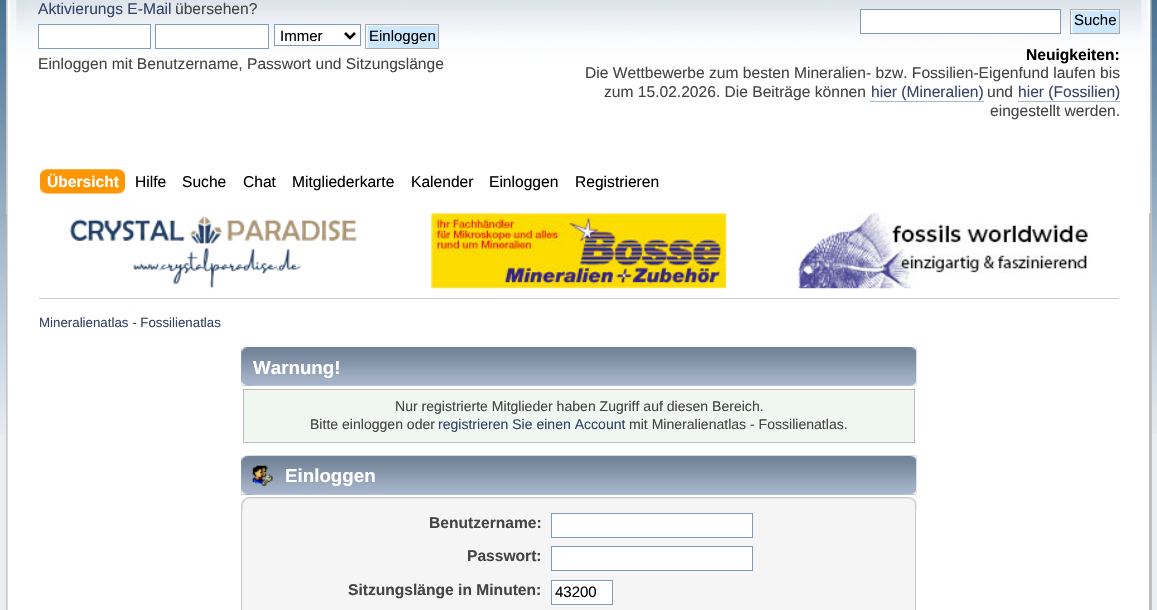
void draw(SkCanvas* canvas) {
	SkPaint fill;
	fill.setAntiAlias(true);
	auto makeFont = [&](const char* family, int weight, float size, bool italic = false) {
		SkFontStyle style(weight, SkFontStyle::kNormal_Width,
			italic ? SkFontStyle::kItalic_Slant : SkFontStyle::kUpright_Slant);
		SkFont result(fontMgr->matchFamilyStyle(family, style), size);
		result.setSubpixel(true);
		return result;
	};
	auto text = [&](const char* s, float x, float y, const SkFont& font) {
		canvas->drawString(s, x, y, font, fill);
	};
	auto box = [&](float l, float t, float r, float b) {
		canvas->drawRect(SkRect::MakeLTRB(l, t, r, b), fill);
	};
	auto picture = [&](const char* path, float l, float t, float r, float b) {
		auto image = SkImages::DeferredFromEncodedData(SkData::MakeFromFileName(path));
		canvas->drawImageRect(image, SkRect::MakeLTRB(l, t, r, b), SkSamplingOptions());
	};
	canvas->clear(0xFFE9EEF2);
	picture("image0.png", 0, 0, 1157, 434);
	fill.setColor(0xFFFEFEFE);
	box(6, 0, 1149, 214);
	picture("image1.png", 6, 0, 1152, 214);
	picture("image2.png", 1141, 0, 1152, 214);
	fill.setColor(0xFFFFFFFF);
	canvas->drawRect(SkRect::MakeLTRB(38.5f, 24.5f, 150.5f, 48.5f), fill);
	fill.setStyle(SkPaint::kStroke_Style);
	fill.setStrokeWidth(1);
	fill.setColor(0xFF7F9DB9);
	canvas->drawRect(SkRect::MakeLTRB(38.5f, 24.5f, 150.5f, 48.5f), fill);
	fill.setStyle(SkPaint::kFill_Style);
	fill.setColor(0xFFFFFFFF);
	canvas->drawRect(SkRect::MakeLTRB(155.5f, 24.5f, 268.5f, 48.5f), fill);
	fill.setStyle(SkPaint::kStroke_Style);
	fill.setColor(0xFF7F9DB9);
	canvas->drawRect(SkRect::MakeLTRB(155.5f, 24.5f, 268.5f, 48.5f), fill);
	fill.setStyle(SkPaint::kFill_Style);
	fill.setColor(0xFFFFFFFF);
	canvas->drawRect(SkRect::MakeLTRB(274.5f, 24.5f, 360.5f, 45.5f), fill);
	fill.setStyle(SkPaint::kStroke_Style);
	fill.setColor(0xFF7F9DB9);
	canvas->drawRect(SkRect::MakeLTRB(274.5f, 24.5f, 360.5f, 45.5f), fill);
	fill.setStrokeWidth(2.5f);
	fill.setColor(0xFF000000);
	canvas->drawPath(SkPathBuilder().moveTo(345, 33).lineTo(350, 38).lineTo(355, 33).detach(), fill);
	picture("image3.png", 366, 25, 438, 48);
	fill.setStrokeWidth(1);
	fill.setColor(0xFFAAAAAA);
	canvas->drawRect(SkRect::MakeLTRB(365.5f, 24.5f, 438.5f, 48.5f), fill);
	fill.setStyle(SkPaint::kFill_Style);
	fill.setColor(0xFFFFFFFF);
	canvas->drawRect(SkRect::MakeLTRB(860.5f, 9.5f, 1060.5f, 33.5f), fill);
	fill.setStyle(SkPaint::kStroke_Style);
	fill.setColor(0xFF7F9DB9);
	canvas->drawRect(SkRect::MakeLTRB(860.5f, 9.5f, 1060.5f, 33.5f), fill);
	picture("image4.png", 1071, 10, 1119, 33);
	fill.setColor(0xFFAAAAAA);
	canvas->drawRect(SkRect::MakeLTRB(1070.5f, 9.5f, 1119.5f, 33.5f), fill);
	fill.setStyle(SkPaint::kFill_Style);
	fill.setColor(0xFFA8B6CF);
	box(870, 101, 984, 102);
	box(1018, 101, 1120, 102);
	picture("image5.png", 46, 169, 125, 194);
	picture("image6.png", 40, 169, 119, 194);
	picture("image7.png", 6, 213, 1149, 610);
	fill.setColor(0xFFBEBEBE);
	box(1149, 213, 1152, 610);
	picture("image8.png", 69, 216, 357, 289);
	picture("image9.png", 431, 213, 727, 289);
	picture("image10.png", 796, 213, 1089, 289);
	fill.setColor(0xFFCCCCCC);
	box(39, 298, 1119, 299);
	fill.setColor(0xFF99ABBF);
	box(241, 348, 916, 386);
	picture("image11.png", 241, 347, 917, 386);
	picture("image12.png", 252, 347, 917, 386);
	fill.setColor(0xFFF0F6F0);
	canvas->drawRect(SkRect::MakeLTRB(243.5f, 389.5f, 914.5f, 442.5f), fill);
	fill.setStyle(SkPaint::kStroke_Style);
	fill.setColor(0xFFBBBBBB);
	canvas->drawRect(SkRect::MakeLTRB(243.5f, 389.5f, 914.5f, 442.5f), fill);
	fill.setStyle(SkPaint::kFill_Style);
	fill.setColor(0xFF99ABBF);
	box(241, 456, 916, 495);
	picture("image13.png", 241, 455, 917, 495);
	picture("image14.png", 252, 455, 917, 495);
	picture("image15.png", 252, 465, 273, 486);
	picture("image16.png", 241, 497, 917, 511);
	picture("image17.png", 909, 497, 917, 511);
	fill.setColor(0xFFF5F5F5);
	box(242, 511, 915, 610);
	fill.setColor(0xFFC5C5C5);
	box(915, 511, 916, 610);
	box(241, 511, 242, 610);
	fill.setColor(0xFFFFFFFF);
	canvas->drawRect(SkRect::MakeLTRB(551.5f, 513.5f, 752.5f, 537.5f), fill);
	fill.setStyle(SkPaint::kStroke_Style);
	fill.setColor(0xFF7F9DB9);
	canvas->drawRect(SkRect::MakeLTRB(551.5f, 513.5f, 752.5f, 537.5f), fill);
	fill.setStyle(SkPaint::kFill_Style);
	fill.setColor(0xFFFFFFFF);
	canvas->drawRect(SkRect::MakeLTRB(551.5f, 546.5f, 752.5f, 570.5f), fill);
	fill.setStyle(SkPaint::kStroke_Style);
	fill.setColor(0xFF7F9DB9);
	canvas->drawRect(SkRect::MakeLTRB(551.5f, 546.5f, 752.5f, 570.5f), fill);
	fill.setStyle(SkPaint::kFill_Style);
	fill.setColor(0xFFFFFFFF);
	canvas->drawRect(SkRect::MakeLTRB(551.5f, 580.5f, 612.5f, 604.5f), fill);
	fill.setStyle(SkPaint::kStroke_Style);
	fill.setColor(0xFF7F9DB9);
	canvas->drawRect(SkRect::MakeLTRB(551.5f, 580.5f, 612.5f, 604.5f), fill);
	auto font1 = makeFont("Liberation Sans", 400, 15.6f);
	fill.setStyle(SkPaint::kFill_Style);
	fill.setColor(0xFF334466);
	text("Aktivierungs E-Mail", 38, 14, font1);
	fill.setColor(0xFF444444);
	text("übersehen?", 175, 14, font1);
	auto font2 = makeFont("Liberation Sans", 400, 15);
	fill.setColor(0xFF000000);
	text("Immer", 280, 41, font2);
	text("Einloggen", 369, 41, font2);
	fill.setColor(0xFF444444);
	text("Einloggen mit Benutzername, Passwort und Sitzungslänge", 38, 69, font1);
	fill.setColor(0xFF000000);
	text("Suche", 1074, 25, font2);
	auto font3 = makeFont("Liberation Sans", 700, 15.6f);
	text("Neuigkeiten:", 1026, 60, font3);
	fill.setColor(0xFF444444);
	text("Die Wettbewerbe zum besten Mineralien- bzw. Fossilien-Eigenfund laufen bis", 585, 78, font1);
	text("zum 15.02.2026. Die Beiträge können", 604, 97, font1);
	fill.setColor(0xFF334466);
	text("hier (Mineralien)", 871, 97, font1);
	fill.setColor(0xFF444444);
	text("und", 987, 97, font1);
	fill.setColor(0xFF334466);
	text("hier (Fossilien)", 1018, 97, font1);
	fill.setColor(0xFF444444);
	text("eingestellt werden.", 990, 116, font1);
	fill.setColor(0xFFFFFFFF);
	text("Übersicht", 47, 187, font3);
	fill.setColor(0xFF000000);
	text("Hilfe", 135, 187, font1);
	text("Suche", 182, 187, font1);
	text("Chat", 243, 187, font1);
	text("Mitgliederkarte", 292, 187, font1);
	text("Kalender", 411, 187, font1);
	text("Einloggen", 489, 187, font1);
	text("Registrieren", 575, 187, font1);
	auto font4 = makeFont("Liberation Sans", 400, 13.3f);
	fill.setColor(0xFF334466);
	text("Mineralienatlas - Fossilienatlas", 39, 327, font4);
	auto font5 = makeFont("Liberation Sans", 700, 18.75f);
	fill.setColor(0xFFFFFFFF);
	text("Warnung!", 253, 374, font5);
	auto font6 = makeFont("Liberation Sans", 400, 14.05f);
	fill.setColor(0xFF444444);
	text("Nur registrierte Mitglieder haben Zugriff auf diesen Bereich.", 395, 411, font6);
	text("Bitte einloggen oder", 310, 429, font6);
	fill.setColor(0xFF334466);
	text("registrieren Sie einen Account", 438, 429, font6);
	fill.setColor(0xFF444444);
	text("mit Mineralienatlas - Fossilienatlas.", 629, 429, font6);
	fill.setColor(0xFFFFFFFF);
	text("Einloggen", 285, 482, font5);
	fill.setColor(0xFF444444);
	text("Benutzername:", 429, 528, font3);
	text("Passwort:", 467, 561, font3);
	text("Sitzungslänge in Minuten:", 348, 595, font3);
	fill.setColor(0xFF000000);
	text("43200", 555, 597, font2);
}
